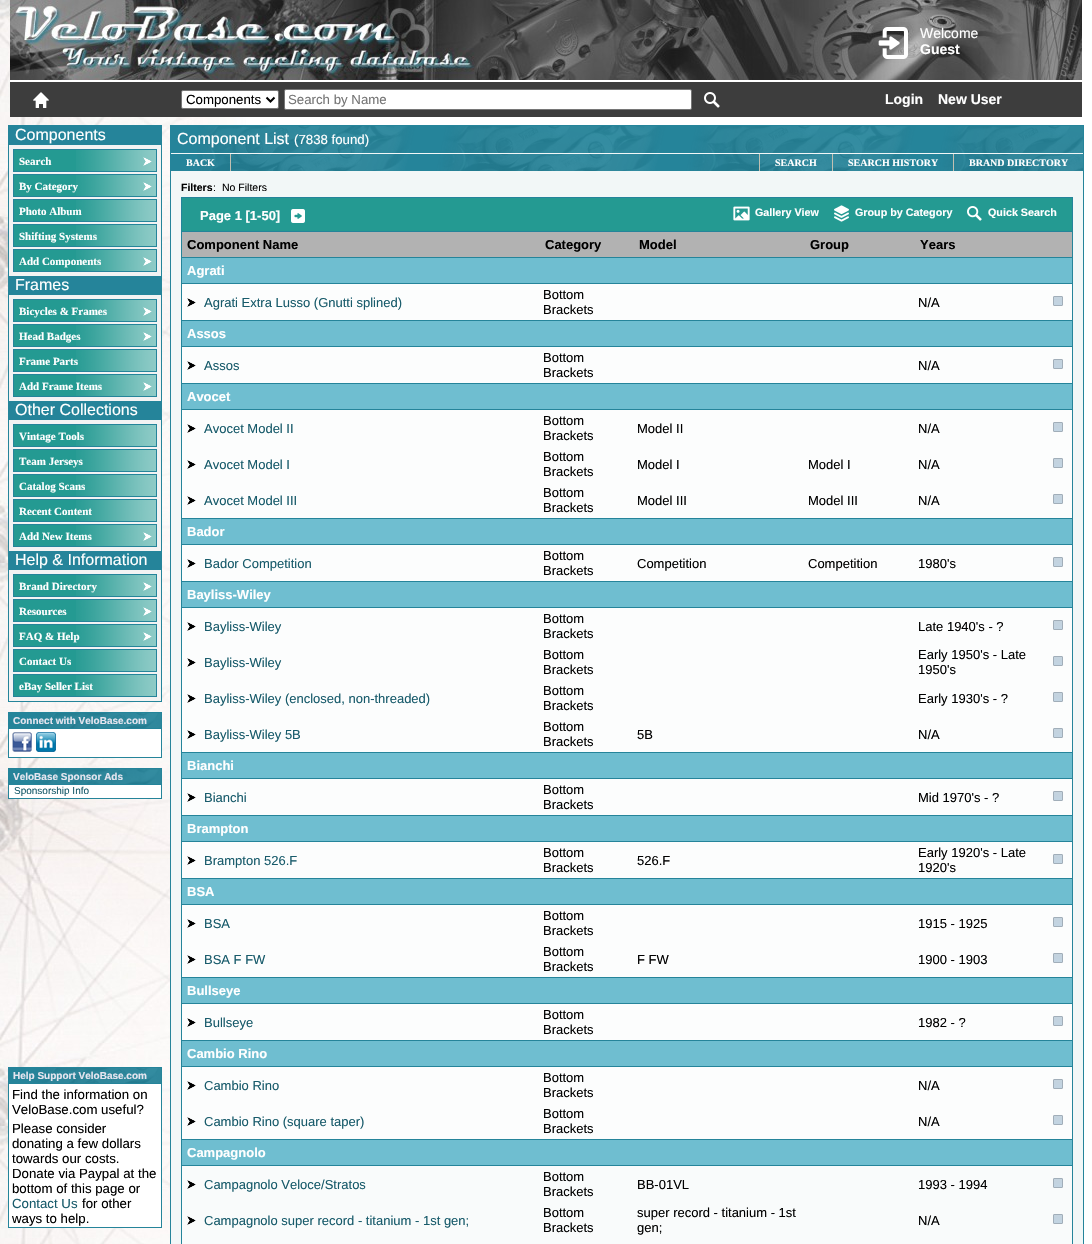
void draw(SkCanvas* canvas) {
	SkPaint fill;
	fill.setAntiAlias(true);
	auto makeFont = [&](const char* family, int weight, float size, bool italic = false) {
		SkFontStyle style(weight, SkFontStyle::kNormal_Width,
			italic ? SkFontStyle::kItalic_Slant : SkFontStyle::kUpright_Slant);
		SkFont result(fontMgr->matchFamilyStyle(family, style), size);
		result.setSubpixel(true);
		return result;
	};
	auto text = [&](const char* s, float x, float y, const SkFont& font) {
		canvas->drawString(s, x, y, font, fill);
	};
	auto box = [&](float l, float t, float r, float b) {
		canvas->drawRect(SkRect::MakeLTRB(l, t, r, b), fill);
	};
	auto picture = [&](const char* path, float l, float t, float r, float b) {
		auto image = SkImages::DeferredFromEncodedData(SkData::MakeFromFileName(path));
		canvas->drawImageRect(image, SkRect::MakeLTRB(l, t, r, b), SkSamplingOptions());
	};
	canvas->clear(0xFFFFFFFF);
	picture("image0.png", 0, 0, 246, 1244);
	picture("image1.png", 510, 0, 1082, 80);
	picture("image2.png", 10, 0, 510, 80);
	picture("image3.png", 878, 27, 908, 59);
	fill.setColor(0xFF3D3D3D);
	box(10, 82, 1082, 117);
	fill.setColor(0xFFFFFFFF);
	box(10, 80, 238, 82);
	picture("image4.png", 33, 92, 49, 108);
	canvas->drawRoundRect(SkRect::MakeLTRB(181.5f, 90.5f, 278.5f, 108.5f), 1.5f, 1.5f, fill);
	fill.setStyle(SkPaint::kStroke_Style);
	fill.setStrokeWidth(1);
	fill.setColor(0xFF767676);
	canvas->drawRoundRect(SkRect::MakeLTRB(181.5f, 90.5f, 278.5f, 108.5f), 1.5f, 1.5f, fill);
	fill.setStrokeWidth(2);
	fill.setColor(0xFF000000);
	canvas->drawPath(SkPathBuilder().moveTo(266.5f, 97.5f).lineTo(270.5f, 101.5f).lineTo(274.5f, 97.5f).detach(), fill);
	fill.setStyle(SkPaint::kFill_Style);
	fill.setColor(0xFFFFFFFF);
	canvas->drawRoundRect(SkRect::MakeLTRB(284.5f, 89.5f, 691.5f, 109.5f), 1.5f, 1.5f, fill);
	fill.setStyle(SkPaint::kStroke_Style);
	fill.setStrokeWidth(1);
	fill.setColor(0xFF767676);
	canvas->drawRoundRect(SkRect::MakeLTRB(284.5f, 89.5f, 691.5f, 109.5f), 1.5f, 1.5f, fill);
	picture("image5.png", 704, 92, 720, 108);
	fill.setStyle(SkPaint::kFill_Style);
	fill.setColor(0xFFF3F3F3);
	box(9, 145, 161, 701);
	fill.setStyle(SkPaint::kStroke_Style);
	fill.setColor(0xFF25849A);
	canvas->drawRect(SkRect::MakeLTRB(8.5f, 125.5f, 161.5f, 701.5f), fill);
	fill.setStyle(SkPaint::kFill_Style);
	box(9, 126, 161, 145);
	fill.setColor(0xFF249A92);
	box(14, 150, 156, 171);
	picture("image6.png", 76, 150, 156, 171);
	fill.setStyle(SkPaint::kStroke_Style);
	fill.setColor(0xFF25849A);
	canvas->drawRect(SkRect::MakeLTRB(13.5f, 149.5f, 156.5f, 171.5f), fill);
	picture("image7.png", 143, 157, 152, 166);
	fill.setStyle(SkPaint::kFill_Style);
	fill.setColor(0xFF249A92);
	box(14, 175, 156, 196);
	picture("image6.png", 76, 175, 156, 196);
	fill.setStyle(SkPaint::kStroke_Style);
	fill.setColor(0xFF25849A);
	canvas->drawRect(SkRect::MakeLTRB(13.5f, 174.5f, 156.5f, 196.5f), fill);
	picture("image7.png", 143, 182, 152, 191);
	fill.setStyle(SkPaint::kFill_Style);
	fill.setColor(0xFF249A92);
	box(14, 200, 156, 221);
	picture("image6.png", 76, 200, 156, 221);
	fill.setStyle(SkPaint::kStroke_Style);
	fill.setColor(0xFF25849A);
	canvas->drawRect(SkRect::MakeLTRB(13.5f, 199.5f, 156.5f, 221.5f), fill);
	fill.setStyle(SkPaint::kFill_Style);
	fill.setColor(0xFF249A92);
	box(14, 225, 156, 246);
	picture("image6.png", 76, 225, 156, 246);
	fill.setStyle(SkPaint::kStroke_Style);
	fill.setColor(0xFF25849A);
	canvas->drawRect(SkRect::MakeLTRB(13.5f, 224.5f, 156.5f, 246.5f), fill);
	fill.setStyle(SkPaint::kFill_Style);
	fill.setColor(0xFF249A92);
	box(14, 250, 156, 271);
	picture("image6.png", 76, 250, 156, 271);
	fill.setStyle(SkPaint::kStroke_Style);
	fill.setColor(0xFF25849A);
	canvas->drawRect(SkRect::MakeLTRB(13.5f, 249.5f, 156.5f, 271.5f), fill);
	picture("image7.png", 143, 257, 152, 266);
	fill.setStyle(SkPaint::kFill_Style);
	box(9, 276, 161, 295);
	fill.setColor(0xFF249A92);
	box(14, 300, 156, 321);
	picture("image6.png", 76, 300, 156, 321);
	fill.setStyle(SkPaint::kStroke_Style);
	fill.setColor(0xFF25849A);
	canvas->drawRect(SkRect::MakeLTRB(13.5f, 299.5f, 156.5f, 321.5f), fill);
	picture("image7.png", 143, 307, 152, 316);
	fill.setStyle(SkPaint::kFill_Style);
	fill.setColor(0xFF249A92);
	box(14, 325, 156, 346);
	picture("image6.png", 76, 325, 156, 346);
	fill.setStyle(SkPaint::kStroke_Style);
	fill.setColor(0xFF25849A);
	canvas->drawRect(SkRect::MakeLTRB(13.5f, 324.5f, 156.5f, 346.5f), fill);
	picture("image7.png", 143, 332, 152, 341);
	fill.setStyle(SkPaint::kFill_Style);
	fill.setColor(0xFF249A92);
	box(14, 350, 156, 371);
	picture("image6.png", 76, 350, 156, 371);
	fill.setStyle(SkPaint::kStroke_Style);
	fill.setColor(0xFF25849A);
	canvas->drawRect(SkRect::MakeLTRB(13.5f, 349.5f, 156.5f, 371.5f), fill);
	fill.setStyle(SkPaint::kFill_Style);
	fill.setColor(0xFF249A92);
	box(14, 375, 156, 396);
	picture("image6.png", 76, 375, 156, 396);
	fill.setStyle(SkPaint::kStroke_Style);
	fill.setColor(0xFF25849A);
	canvas->drawRect(SkRect::MakeLTRB(13.5f, 374.5f, 156.5f, 396.5f), fill);
	picture("image7.png", 143, 382, 152, 391);
	fill.setStyle(SkPaint::kFill_Style);
	box(9, 401, 161, 420);
	fill.setColor(0xFF249A92);
	box(14, 425, 156, 446);
	picture("image6.png", 76, 425, 156, 446);
	fill.setStyle(SkPaint::kStroke_Style);
	fill.setColor(0xFF25849A);
	canvas->drawRect(SkRect::MakeLTRB(13.5f, 424.5f, 156.5f, 446.5f), fill);
	fill.setStyle(SkPaint::kFill_Style);
	fill.setColor(0xFF249A92);
	box(14, 450, 156, 471);
	picture("image6.png", 76, 450, 156, 471);
	fill.setStyle(SkPaint::kStroke_Style);
	fill.setColor(0xFF25849A);
	canvas->drawRect(SkRect::MakeLTRB(13.5f, 449.5f, 156.5f, 471.5f), fill);
	fill.setStyle(SkPaint::kFill_Style);
	fill.setColor(0xFF249A92);
	box(14, 475, 156, 496);
	picture("image6.png", 76, 475, 156, 496);
	fill.setStyle(SkPaint::kStroke_Style);
	fill.setColor(0xFF25849A);
	canvas->drawRect(SkRect::MakeLTRB(13.5f, 474.5f, 156.5f, 496.5f), fill);
	fill.setStyle(SkPaint::kFill_Style);
	fill.setColor(0xFF249A92);
	box(14, 500, 156, 521);
	picture("image6.png", 76, 500, 156, 521);
	fill.setStyle(SkPaint::kStroke_Style);
	fill.setColor(0xFF25849A);
	canvas->drawRect(SkRect::MakeLTRB(13.5f, 499.5f, 156.5f, 521.5f), fill);
	fill.setStyle(SkPaint::kFill_Style);
	fill.setColor(0xFF249A92);
	box(14, 525, 156, 546);
	picture("image6.png", 76, 525, 156, 546);
	fill.setStyle(SkPaint::kStroke_Style);
	fill.setColor(0xFF25849A);
	canvas->drawRect(SkRect::MakeLTRB(13.5f, 524.5f, 156.5f, 546.5f), fill);
	picture("image7.png", 143, 532, 152, 541);
	fill.setStyle(SkPaint::kFill_Style);
	box(9, 551, 161, 570);
	fill.setColor(0xFF249A92);
	box(14, 575, 156, 596);
	picture("image6.png", 76, 575, 156, 596);
	fill.setStyle(SkPaint::kStroke_Style);
	fill.setColor(0xFF25849A);
	canvas->drawRect(SkRect::MakeLTRB(13.5f, 574.5f, 156.5f, 596.5f), fill);
	picture("image7.png", 143, 582, 152, 591);
	fill.setStyle(SkPaint::kFill_Style);
	fill.setColor(0xFF249A92);
	box(14, 600, 156, 621);
	picture("image6.png", 76, 600, 156, 621);
	fill.setStyle(SkPaint::kStroke_Style);
	fill.setColor(0xFF25849A);
	canvas->drawRect(SkRect::MakeLTRB(13.5f, 599.5f, 156.5f, 621.5f), fill);
	picture("image7.png", 143, 607, 152, 616);
	fill.setStyle(SkPaint::kFill_Style);
	fill.setColor(0xFF249A92);
	box(14, 625, 156, 646);
	picture("image6.png", 76, 625, 156, 646);
	fill.setStyle(SkPaint::kStroke_Style);
	fill.setColor(0xFF25849A);
	canvas->drawRect(SkRect::MakeLTRB(13.5f, 624.5f, 156.5f, 646.5f), fill);
	picture("image7.png", 143, 632, 152, 641);
	fill.setStyle(SkPaint::kFill_Style);
	fill.setColor(0xFF249A92);
	box(14, 650, 156, 671);
	picture("image6.png", 76, 650, 156, 671);
	fill.setStyle(SkPaint::kStroke_Style);
	fill.setColor(0xFF25849A);
	canvas->drawRect(SkRect::MakeLTRB(13.5f, 649.5f, 156.5f, 671.5f), fill);
	fill.setStyle(SkPaint::kFill_Style);
	fill.setColor(0xFF249A92);
	box(14, 675, 156, 696);
	picture("image6.png", 76, 675, 156, 696);
	fill.setStyle(SkPaint::kStroke_Style);
	fill.setColor(0xFF25849A);
	canvas->drawRect(SkRect::MakeLTRB(13.5f, 674.5f, 156.5f, 696.5f), fill);
	fill.setStyle(SkPaint::kFill_Style);
	fill.setColor(0xFFFFFFFF);
	box(9, 729, 161, 757);
	fill.setStyle(SkPaint::kStroke_Style);
	fill.setColor(0xFF25849A);
	canvas->drawRect(SkRect::MakeLTRB(8.5f, 712.5f, 161.5f, 757.5f), fill);
	picture("image8.png", 9, 713, 161, 728);
	fill.setStyle(SkPaint::kFill_Style);
	box(9, 728, 161, 729);
	picture("image9.png", 12, 732, 32, 752);
	picture("image10.png", 36, 732, 56, 752);
	fill.setColor(0xFFFFFFFF);
	box(9, 785, 161, 798);
	fill.setColor(0xFF25849A);
	box(8, 768, 162, 769);
	box(161, 768, 162, 799);
	box(8, 798, 162, 799);
	box(8, 768, 9, 799);
	picture("image11.png", 9, 769, 161, 784);
	box(8, 784, 162, 785);
	fill.setColor(0xFFFFFFFF);
	box(9, 1084, 161, 1227);
	fill.setStyle(SkPaint::kStroke_Style);
	fill.setColor(0xFF25849A);
	canvas->drawRect(SkRect::MakeLTRB(8.5f, 1067.5f, 161.5f, 1227.5f), fill);
	picture("image8.png", 9, 1068, 161, 1083);
	fill.setStyle(SkPaint::kFill_Style);
	box(9, 1083, 161, 1084);
	fill.setColor(0xFFF2F7F7);
	box(171, 171, 1083, 1244);
	fill.setStyle(SkPaint::kStroke_Style);
	fill.setColor(0xFF25849A);
	canvas->drawRect(SkRect::MakeLTRB(170.5f, 125.5f, 1083.5f, 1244.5f), fill);
	fill.setStyle(SkPaint::kFill_Style);
	box(171, 126, 197, 171);
	picture("image12.png", 197, 126, 1083, 171);
	fill.setColor(0xFFF2F7F7);
	box(171, 153, 1083, 154);
	fill.setColor(0xFFC2C0B2);
	box(230, 154, 231, 171);
	box(759, 154, 760, 171);
	box(832, 154, 833, 171);
	box(953, 154, 954, 171);
	fill.setColor(0xFFF9FBFB);
	box(182, 284, 1072, 1244);
	picture("image13.png", 182, 197, 1072, 1140);
	fill.setColor(0xFF25849A);
	box(1072, 197, 1073, 1244);
	box(181, 197, 182, 1244);
	fill.setColor(0xFF249A92);
	box(182, 198, 1072, 231);
	picture("image14.png", 291, 209, 305, 223);
	picture("image15.png", 733, 206, 750, 221);
	picture("image16.png", 834, 205, 849, 222);
	picture("image17.png", 967, 206, 982, 221);
	fill.setColor(0xFFB2B2B2);
	box(182, 232, 1072, 257);
	fill.setColor(0xFF6FBED0);
	box(182, 258, 1072, 283);
	picture("image18.png", 187, 298, 196, 307);
	picture("image19.png", 1053, 296, 1063, 306);
	box(182, 321, 1072, 346);
	picture("image18.png", 187, 361, 196, 370);
	picture("image19.png", 1053, 359, 1063, 369);
	box(182, 384, 1072, 409);
	picture("image18.png", 187, 424, 196, 433);
	picture("image19.png", 1053, 422, 1063, 432);
	picture("image18.png", 187, 460, 196, 469);
	picture("image19.png", 1053, 458, 1063, 468);
	picture("image18.png", 187, 496, 196, 505);
	picture("image19.png", 1053, 494, 1063, 504);
	box(182, 519, 1072, 544);
	picture("image18.png", 187, 559, 196, 568);
	picture("image19.png", 1053, 557, 1063, 567);
	box(182, 582, 1072, 607);
	picture("image18.png", 187, 622, 196, 631);
	picture("image19.png", 1053, 620, 1063, 630);
	picture("image18.png", 187, 658, 196, 667);
	picture("image19.png", 1053, 656, 1063, 666);
	picture("image18.png", 187, 694, 196, 703);
	picture("image19.png", 1053, 692, 1063, 702);
	picture("image18.png", 187, 730, 196, 739);
	picture("image19.png", 1053, 728, 1063, 738);
	box(182, 753, 1072, 778);
	picture("image18.png", 187, 793, 196, 802);
	picture("image19.png", 1053, 791, 1063, 801);
	box(182, 816, 1072, 841);
	picture("image18.png", 187, 856, 196, 865);
	picture("image19.png", 1053, 854, 1063, 864);
	box(182, 879, 1072, 904);
	picture("image18.png", 187, 919, 196, 928);
	picture("image19.png", 1053, 917, 1063, 927);
	picture("image18.png", 187, 955, 196, 964);
	picture("image19.png", 1053, 953, 1063, 963);
	box(182, 978, 1072, 1003);
	picture("image18.png", 187, 1018, 196, 1027);
	picture("image19.png", 1053, 1016, 1063, 1026);
	box(182, 1041, 1072, 1066);
	picture("image18.png", 187, 1081, 196, 1090);
	picture("image19.png", 1053, 1079, 1063, 1089);
	picture("image18.png", 187, 1117, 196, 1126);
	picture("image19.png", 1053, 1115, 1063, 1125);
	box(182, 1140, 1072, 1165);
	fill.setColor(0xFF25849A);
	box(181, 1165, 1073, 1166);
	picture("image20.png", 187, 1180, 196, 1189);
	picture("image21.png", 1053, 1178, 1063, 1188);
	picture("image20.png", 187, 1216, 196, 1225);
	picture("image21.png", 1053, 1214, 1063, 1224);
	auto font1 = makeFont("Liberation Sans", 400, 14);
	fill.setColor(0xFFFFFFFF);
	text("Welcome", 920, 38, font1);
	auto font2 = makeFont("Liberation Sans", 700, 14);
	text("Guest", 920, 54, font2);
	auto font3 = makeFont("Liberation Sans", 400, 13.25f);
	fill.setColor(0xFF000000);
	text("Components", 186, 104, font3);
	fill.setColor(0xFF757575);
	text("Search by Name", 288, 104, font3);
	fill.setColor(0xFFFFFFFF);
	text("Login", 885, 104, font2);
	text("New User", 938, 104, font2);
	auto font4 = makeFont("Liberation Sans", 400, 16);
	text("Components", 15, 140, font4);
	auto font5 = makeFont("Liberation Serif", 700, 11);
	text("Search", 19, 165, font5);
	text("By Category", 19, 190, font5);
	text("Photo Album", 19, 215, font5);
	text("Shifting Systems", 19, 240, font5);
	text("Add Components", 19, 265, font5);
	text("Frames", 15, 290, font4);
	text("Bicycles & Frames", 19, 315, font5);
	text("Head Badges", 19, 340, font5);
	text("Frame Parts", 19, 365, font5);
	text("Add Frame Items", 19, 390, font5);
	text("Other Collections", 15, 415, font4);
	text("Vintage Tools", 19, 440, font5);
	text("Team Jerseys", 19, 465, font5);
	text("Catalog Scans", 19, 490, font5);
	text("Recent Content", 19, 515, font5);
	text("Add New Items", 19, 540, font5);
	text("Help & Information", 15, 565, font4);
	text("Brand Directory", 19, 590, font5);
	text("Resources", 19, 615, font5);
	text("FAQ & Help", 19, 640, font5);
	text("Contact Us", 19, 665, font5);
	text("eBay Seller List", 19, 690, font5);
	auto font6 = makeFont("Liberation Sans", 700, 10);
	fill.setColor(0xFFE6E6F0);
	text("Connect with VeloBase.com", 13, 724, font6);
	text("VeloBase Sponsor Ads", 13, 780, font6);
	auto font7 = makeFont("Liberation Sans", 400, 10);
	fill.setColor(0xFF185B6B);
	text("Sponsorship Info", 14, 794, font7);
	fill.setColor(0xFFE6E6F0);
	text("Help Support VeloBase.com", 13, 1079, font6);
	fill.setColor(0xFF000000);
	text("Find the information on", 12, 1099, font3);
	text("VeloBase.com useful?", 12, 1114, font3);
	text("Please consider", 12, 1133, font3);
	text("donating a few dollars", 12, 1148, font3);
	text("towards our costs.", 12, 1163, font3);
	text("Donate via Paypal at the", 12, 1178, font3);
	text("bottom of this page or", 12, 1193, font3);
	fill.setColor(0xFF185B6B);
	text("Contact Us", 12, 1208, font3);
	fill.setColor(0xFF000000);
	text("for other", 82, 1208, font3);
	text("ways to help.", 12, 1223, font3);
	fill.setColor(0xFFFFFFFF);
	text("Component List", 177, 144, font4);
	text("(7838 found)", 294, 144, font3);
	auto font8 = makeFont("Liberation Serif", 700, 10);
	text("BACK", 186, 166, font8);
	text("SEARCH", 775, 166, font8);
	text("SEARCH HISTORY", 848, 166, font8);
	text("BRAND DIRECTORY", 969, 166, font8);
	auto font9 = makeFont("Liberation Sans", 700, 10.5f);
	fill.setColor(0xFF000000);
	text("Filters", 181, 191, font9);
	auto font10 = makeFont("Liberation Sans", 400, 10.5f);
	text(":", 213, 191, font10);
	text("No Filters", 222, 191, font10);
	auto font11 = makeFont("Liberation Sans", 700, 13);
	fill.setColor(0xFFFFFFFF);
	text("Page 1 [1-50]", 200, 220, font11);
	auto font12 = makeFont("Liberation Sans", 700, 10.75f);
	text("Gallery View", 755, 216, font12);
	text("Group by Category", 855, 216, font12);
	text("Quick Search", 988, 216, font12);
	fill.setColor(0xFF000000);
	text("Component Name", 187, 249, font11);
	text("Category", 545, 249, font11);
	text("Model", 639, 249, font11);
	text("Group", 810, 249, font11);
	text("Years", 920, 249, font11);
	fill.setColor(0xFFFFFFFF);
	text("Agrati", 187, 275, font11);
	auto font13 = makeFont("Liberation Sans", 400, 13);
	fill.setColor(0xFF185B6B);
	text("Agrati Extra Lusso (Gnutti splined)", 204, 307, font13);
	fill.setColor(0xFF000000);
	text("Bottom", 543, 299, font13);
	text("Brackets", 543, 314, font13);
	text("N/A", 918, 307, font13);
	fill.setColor(0xFFFFFFFF);
	text("Assos", 187, 338, font11);
	fill.setColor(0xFF185B6B);
	text("Assos", 204, 370, font13);
	fill.setColor(0xFF000000);
	text("Bottom", 543, 362, font13);
	text("Brackets", 543, 377, font13);
	text("N/A", 918, 370, font13);
	fill.setColor(0xFFFFFFFF);
	text("Avocet", 187, 401, font11);
	fill.setColor(0xFF185B6B);
	text("Avocet Model II", 204, 433, font13);
	fill.setColor(0xFF000000);
	text("Bottom", 543, 425, font13);
	text("Brackets", 543, 440, font13);
	text("Model II", 637, 433, font13);
	text("N/A", 918, 433, font13);
	fill.setColor(0xFF185B6B);
	text("Avocet Model I", 204, 469, font13);
	fill.setColor(0xFF000000);
	text("Bottom", 543, 461, font13);
	text("Brackets", 543, 476, font13);
	text("Model I", 637, 469, font13);
	text("Model I", 808, 469, font13);
	text("N/A", 918, 469, font13);
	fill.setColor(0xFF185B6B);
	text("Avocet Model III", 204, 505, font13);
	fill.setColor(0xFF000000);
	text("Bottom", 543, 497, font13);
	text("Brackets", 543, 512, font13);
	text("Model III", 637, 505, font13);
	text("Model III", 808, 505, font13);
	text("N/A", 918, 505, font13);
	fill.setColor(0xFFFFFFFF);
	text("Bador", 187, 536, font11);
	fill.setColor(0xFF185B6B);
	text("Bador Competition", 204, 568, font13);
	fill.setColor(0xFF000000);
	text("Bottom", 543, 560, font13);
	text("Brackets", 543, 575, font13);
	text("Competition", 637, 568, font13);
	text("Competition", 808, 568, font13);
	text("1980's", 918, 568, font13);
	fill.setColor(0xFFFFFFFF);
	text("Bayliss-Wiley", 187, 599, font11);
	fill.setColor(0xFF185B6B);
	text("Bayliss-Wiley", 204, 631, font13);
	fill.setColor(0xFF000000);
	text("Bottom", 543, 623, font13);
	text("Brackets", 543, 638, font13);
	text("Late 1940's - ?", 918, 631, font13);
	fill.setColor(0xFF185B6B);
	text("Bayliss-Wiley", 204, 667, font13);
	fill.setColor(0xFF000000);
	text("Bottom", 543, 659, font13);
	text("Brackets", 543, 674, font13);
	text("Early 1950's - Late", 918, 659, font13);
	text("1950's", 918, 674, font13);
	fill.setColor(0xFF185B6B);
	text("Bayliss-Wiley (enclosed, non-threaded)", 204, 703, font13);
	fill.setColor(0xFF000000);
	text("Bottom", 543, 695, font13);
	text("Brackets", 543, 710, font13);
	text("Early 1930's - ?", 918, 703, font13);
	fill.setColor(0xFF185B6B);
	text("Bayliss-Wiley 5B", 204, 739, font13);
	fill.setColor(0xFF000000);
	text("Bottom", 543, 731, font13);
	text("Brackets", 543, 746, font13);
	text("5B", 637, 739, font13);
	text("N/A", 918, 739, font13);
	fill.setColor(0xFFFFFFFF);
	text("Bianchi", 187, 770, font11);
	fill.setColor(0xFF185B6B);
	text("Bianchi", 204, 802, font13);
	fill.setColor(0xFF000000);
	text("Bottom", 543, 794, font13);
	text("Brackets", 543, 809, font13);
	text("Mid 1970's - ?", 918, 802, font13);
	fill.setColor(0xFFFFFFFF);
	text("Brampton", 187, 833, font11);
	fill.setColor(0xFF185B6B);
	text("Brampton 526.F", 204, 865, font13);
	fill.setColor(0xFF000000);
	text("Bottom", 543, 857, font13);
	text("Brackets", 543, 872, font13);
	text("526.F", 637, 865, font13);
	text("Early 1920's - Late", 918, 857, font13);
	text("1920's", 918, 872, font13);
	fill.setColor(0xFFFFFFFF);
	text("BSA", 187, 896, font11);
	fill.setColor(0xFF185B6B);
	text("BSA", 204, 928, font13);
	fill.setColor(0xFF000000);
	text("Bottom", 543, 920, font13);
	text("Brackets", 543, 935, font13);
	text("1915 - 1925", 918, 928, font13);
	fill.setColor(0xFF185B6B);
	text("BSA F FW", 204, 964, font13);
	fill.setColor(0xFF000000);
	text("Bottom", 543, 956, font13);
	text("Brackets", 543, 971, font13);
	text("F FW", 637, 964, font13);
	text("1900 - 1903", 918, 964, font13);
	fill.setColor(0xFFFFFFFF);
	text("Bullseye", 187, 995, font11);
	fill.setColor(0xFF185B6B);
	text("Bullseye", 204, 1027, font13);
	fill.setColor(0xFF000000);
	text("Bottom", 543, 1019, font13);
	text("Brackets", 543, 1034, font13);
	text("1982 - ?", 918, 1027, font13);
	fill.setColor(0xFFFFFFFF);
	text("Cambio Rino", 187, 1058, font11);
	fill.setColor(0xFF185B6B);
	text("Cambio Rino", 204, 1090, font13);
	fill.setColor(0xFF000000);
	text("Bottom", 543, 1082, font13);
	text("Brackets", 543, 1097, font13);
	text("N/A", 918, 1090, font13);
	fill.setColor(0xFF185B6B);
	text("Cambio Rino (square taper)", 204, 1126, font13);
	fill.setColor(0xFF000000);
	text("Bottom", 543, 1118, font13);
	text("Brackets", 543, 1133, font13);
	text("N/A", 918, 1126, font13);
	fill.setColor(0xFFFFFFFF);
	text("Campagnolo", 187, 1157, font11);
	fill.setColor(0xFF185B6B);
	text("Campagnolo Veloce/Stratos", 204, 1189, font13);
	fill.setColor(0xFF000000);
	text("Bottom", 543, 1181, font13);
	text("Brackets", 543, 1196, font13);
	text("BB-01VL", 637, 1189, font13);
	text("1993 - 1994", 918, 1189, font13);
	fill.setColor(0xFF185B6B);
	text("Campagnolo super record - titanium - 1st gen;", 204, 1225, font13);
	fill.setColor(0xFF000000);
	text("Bottom", 543, 1217, font13);
	text("Brackets", 543, 1232, font13);
	text("super record - titanium - 1st", 637, 1217, font13);
	text("gen;", 637, 1232, font13);
	text("N/A", 918, 1225, font13);
}
